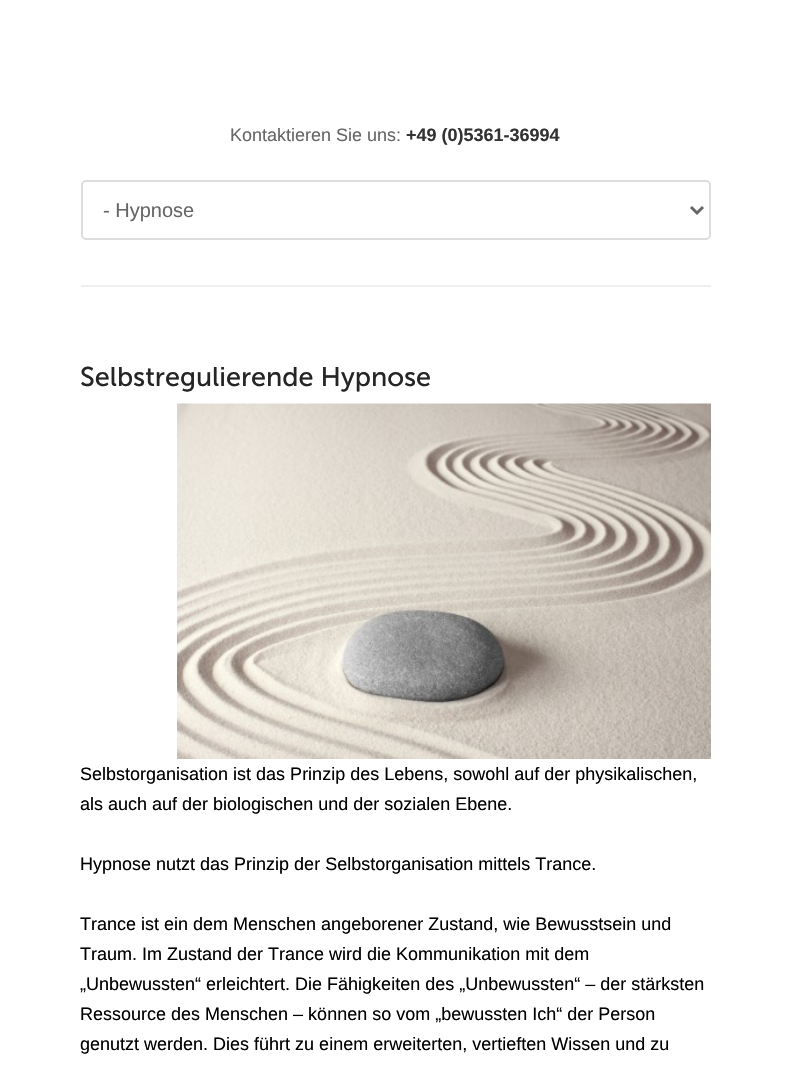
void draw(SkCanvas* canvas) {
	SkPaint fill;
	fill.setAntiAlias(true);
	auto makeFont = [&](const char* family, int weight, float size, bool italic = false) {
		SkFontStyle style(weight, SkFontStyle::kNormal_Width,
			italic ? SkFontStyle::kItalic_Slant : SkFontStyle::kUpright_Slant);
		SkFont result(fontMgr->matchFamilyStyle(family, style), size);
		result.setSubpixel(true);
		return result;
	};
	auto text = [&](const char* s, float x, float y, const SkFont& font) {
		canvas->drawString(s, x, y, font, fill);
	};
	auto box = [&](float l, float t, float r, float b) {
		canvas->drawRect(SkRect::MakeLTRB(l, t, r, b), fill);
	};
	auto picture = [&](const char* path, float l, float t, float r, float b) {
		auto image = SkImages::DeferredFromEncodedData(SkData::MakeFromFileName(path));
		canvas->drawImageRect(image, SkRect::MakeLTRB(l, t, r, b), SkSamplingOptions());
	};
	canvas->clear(0xFFFFFFFF);
	fill.setStyle(SkPaint::kStroke_Style);
	fill.setStrokeWidth(2);
	fill.setColor(0xFFDDDDDD);
	canvas->drawRoundRect(SkRect::MakeLTRB(82, 181, 710, 239), 4, 4, fill);
	fill.setStrokeWidth(3);
	fill.setColor(0xFF666666);
	canvas->drawPath(SkPathBuilder().moveTo(691, 207).lineTo(697, 213).lineTo(703, 207).detach(), fill);
	fill.setStyle(SkPaint::kFill_Style);
	fill.setColor(0xFFEFEFEF);
	box(81, 285, 711, 287);
	picture("image0.png", 177, 403, 711, 759);
	auto font1 = makeFont("Liberation Sans", 400, 18);
	fill.setColor(0xFF666666);
	text("Kontaktieren Sie uns:", 230, 141, font1);
	auto font2 = makeFont("Liberation Sans", 700, 18);
	fill.setColor(0xFF333333);
	text("+49 (0)5361-36994", 406, 141, font2);
	auto font3 = makeFont("Liberation Sans", 400, 20);
	fill.setColor(0xFF666666);
	text("- Hypnose", 103, 217, font3);
	auto font4 = makeFont("Museo Sans", 400, 27);
	fill.setColor(0xFF252525);
	text("Selbstregulierende Hypnose", 80, 386, font4);
	fill.setColor(0xFF000000);
	text("Selbstorganisation ist das Prinzip des Lebens, sowohl auf der physikalischen,", 80, 780, font1);
	text("als auch auf der biologischen und der sozialen Ebene.", 80, 810, font1);
	text("Hypnose nutzt das Prinzip der Selbstorganisation mittels Trance.", 80, 870, font1);
	text("Trance ist ein dem Menschen angeborener Zustand, wie Bewusstsein und", 80, 930, font1);
	text("Traum. Im Zustand der Trance wird die Kommunikation mit dem", 80, 960, font1);
	text("„Unbewussten“ erleichtert. Die Fähigkeiten des „Unbewussten“ – der stärksten", 80, 990, font1);
	text("Ressource des Menschen – können so vom „bewussten Ich“ der Person", 80, 1020, font1);
	text("genutzt werden. Dies führt zu einem erweiterten, vertieften Wissen und zu", 80, 1050, font1);
}
